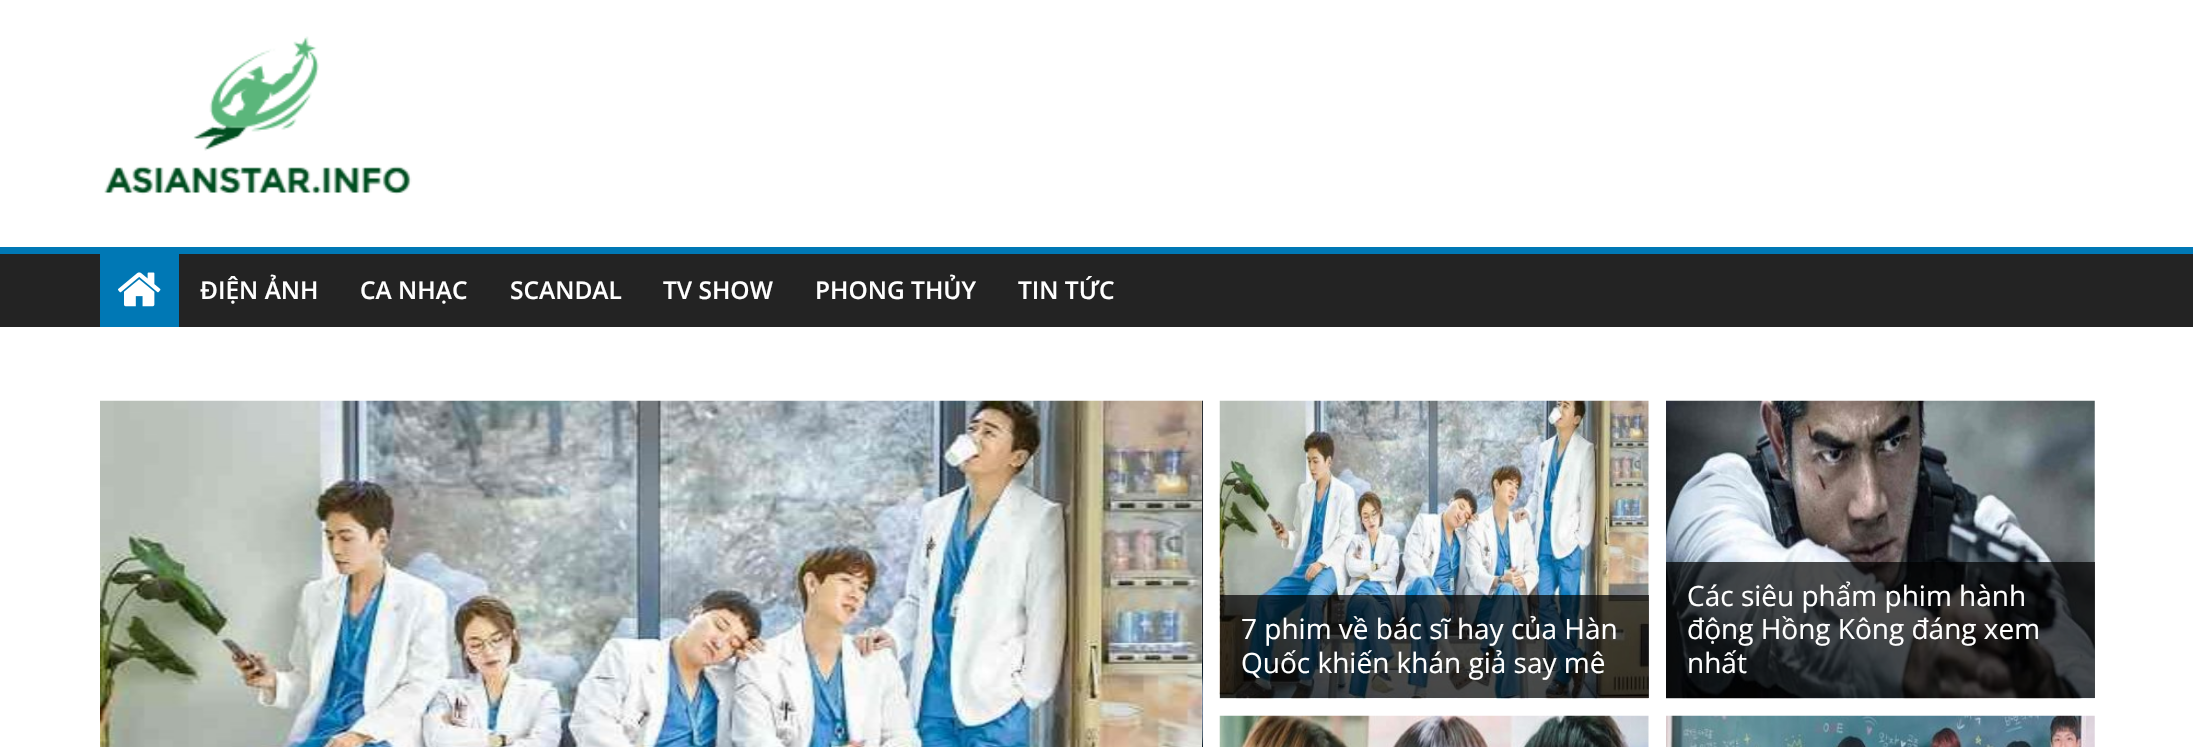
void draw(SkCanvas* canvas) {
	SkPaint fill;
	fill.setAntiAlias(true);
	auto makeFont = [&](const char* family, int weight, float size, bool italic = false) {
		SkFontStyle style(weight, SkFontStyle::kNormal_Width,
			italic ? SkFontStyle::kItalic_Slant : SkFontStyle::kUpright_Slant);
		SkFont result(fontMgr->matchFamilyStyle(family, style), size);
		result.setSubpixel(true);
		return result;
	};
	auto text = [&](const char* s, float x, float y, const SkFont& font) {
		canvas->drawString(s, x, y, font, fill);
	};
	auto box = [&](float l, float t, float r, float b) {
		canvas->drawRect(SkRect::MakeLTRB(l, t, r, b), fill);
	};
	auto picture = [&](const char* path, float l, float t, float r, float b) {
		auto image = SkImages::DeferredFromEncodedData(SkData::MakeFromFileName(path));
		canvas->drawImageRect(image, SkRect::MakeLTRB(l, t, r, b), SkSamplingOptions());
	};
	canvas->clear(0xFFFFFFFF);
	picture("image0.png", 104, 36, 412, 195);
	fill.setColor(0xFF232323);
	box(0, 254, 2193, 327);
	fill.setColor(0xFF0078B5);
	box(0, 247, 2193, 254);
	box(100, 254, 179, 327);
	picture("image1.png", 118, 272, 161, 307);
	picture("image2.png", 100, 400, 1203, 747);
	picture("image3.png", 1202, 400, 1203, 747);
	picture("image4.png", 1219, 400, 1649, 699);
	fill.setColor(0xB3000000);
	box(1220, 595, 1649, 698);
	picture("image5.png", 1666, 400, 2095, 699);
	box(1666, 562, 2095, 698);
	picture("image6.png", 1219, 715, 1649, 747);
	picture("image7.png", 1666, 715, 2095, 747);
	auto font1 = makeFont("Open Sans", 600, 24.5f);
	fill.setColor(0xFFFFFFFF);
	text("ĐIỆN ẢNH", 200, 299, font1);
	text("CA NHẠC", 360, 299, font1);
	text("SCANDAL", 510, 299, font1);
	text("TV SHOW", 663, 299, font1);
	text("PHONG THỦY", 815, 299, font1);
	text("TIN TỨC", 1018, 299, font1);
	auto font2 = makeFont("Open Sans", 400, 28);
	text("7 phim về bác sĩ hay của Hàn", 1241, 639, font2);
	text("Quốc khiến khán giả say mê", 1241, 673, font2);
	text("Các siêu phẩm phim hành", 1687, 606, font2);
	text("động Hồng Kông đáng xem", 1687, 639, font2);
	text("nhất", 1687, 673, font2);
}
